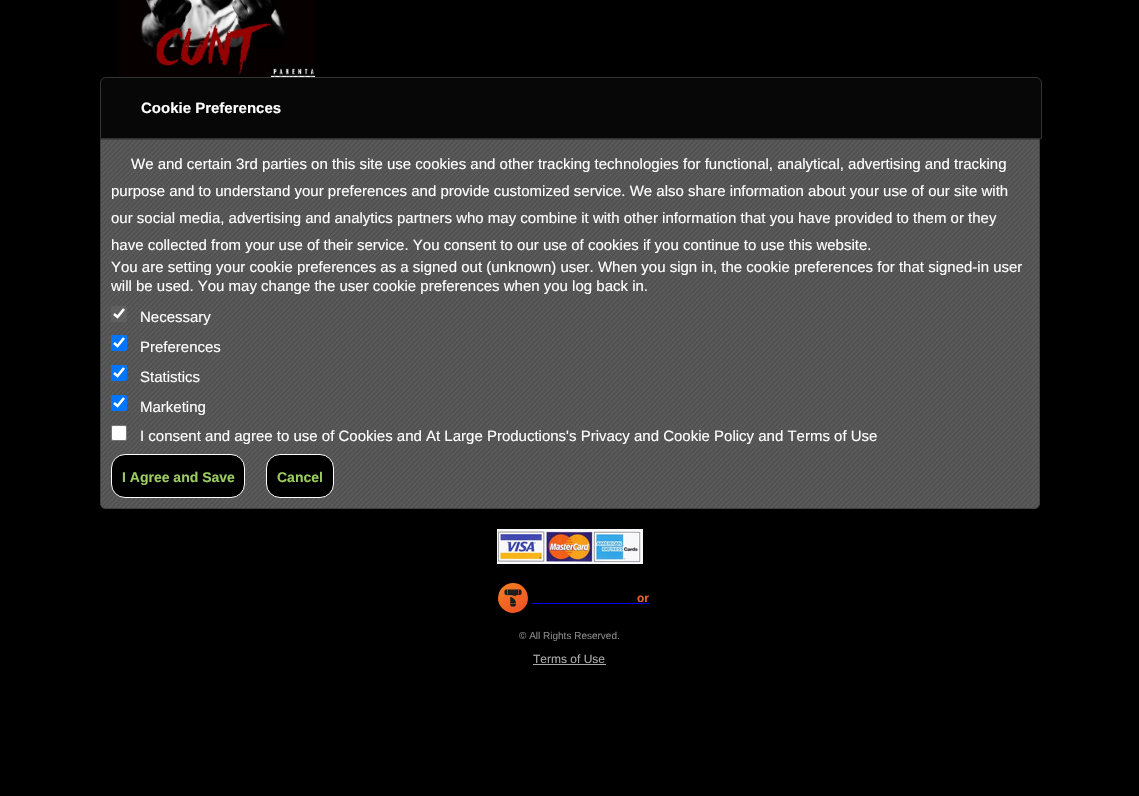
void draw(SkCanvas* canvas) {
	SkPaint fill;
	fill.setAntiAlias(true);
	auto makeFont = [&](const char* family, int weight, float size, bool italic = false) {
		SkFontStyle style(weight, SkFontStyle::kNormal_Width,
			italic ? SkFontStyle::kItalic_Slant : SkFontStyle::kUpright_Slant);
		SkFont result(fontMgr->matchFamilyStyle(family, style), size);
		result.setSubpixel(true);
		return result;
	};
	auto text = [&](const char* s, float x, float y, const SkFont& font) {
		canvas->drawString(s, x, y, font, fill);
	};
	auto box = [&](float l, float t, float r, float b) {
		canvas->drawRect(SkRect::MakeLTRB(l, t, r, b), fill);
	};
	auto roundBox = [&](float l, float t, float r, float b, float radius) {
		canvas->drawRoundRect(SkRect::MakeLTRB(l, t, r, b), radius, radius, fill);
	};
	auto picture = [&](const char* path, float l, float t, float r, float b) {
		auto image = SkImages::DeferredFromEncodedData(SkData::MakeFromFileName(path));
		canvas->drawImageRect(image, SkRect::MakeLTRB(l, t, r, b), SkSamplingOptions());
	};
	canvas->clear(0xFF000000);
	picture("image0.png", 118, 0, 315, 77);
	fill.setColor(0xFF070707);
	canvas->drawPath(SkPathBuilder().moveTo(106, 77.5f).lineTo(1036, 77.5f).cubicTo(1039, 77.5f, 1041.5f, 80, 1041.5f, 83).lineTo(1041.5f, 138.5f).lineTo(100.5f, 138.5f).lineTo(100.5f, 83).cubicTo(100.5f, 80, 103, 77.5f, 106, 77.5f).close().detach(), fill);
	fill.setStyle(SkPaint::kStroke_Style);
	fill.setStrokeWidth(1);
	fill.setColor(0xFF333333);
	canvas->drawPath(SkPathBuilder().moveTo(106, 77.5f).lineTo(1036, 77.5f).cubicTo(1039, 77.5f, 1041.5f, 80, 1041.5f, 83).lineTo(1041.5f, 138.5f).lineTo(100.5f, 138.5f).lineTo(100.5f, 83).cubicTo(100.5f, 80, 103, 77.5f, 106, 77.5f).close().detach(), fill);
	picture("image1.png", 100, 140, 1040, 509);
	fill.setColor(0xFF414141);
	canvas->drawPath(SkPathBuilder().moveTo(100.5f, 139.5f).lineTo(1039.5f, 139.5f).lineTo(1039.5f, 503).cubicTo(1039.5f, 506, 1037, 508.5f, 1034, 508.5f).lineTo(106, 508.5f).cubicTo(103, 508.5f, 100.5f, 506, 100.5f, 503).close().detach(), fill);
	fill.setStyle(SkPaint::kFill_Style);
	fill.setColor(0x4D767676);
	roundBox(111, 306, 127, 322, 2);
	fill.setStyle(SkPaint::kStroke_Style);
	fill.setStrokeWidth(2.6f);
	fill.setColor(0xFFFFFFFF);
	canvas->drawPath(SkPathBuilder().moveTo(114, 314).lineTo(117.5f, 317).lineTo(124, 309).detach(), fill);
	fill.setStyle(SkPaint::kFill_Style);
	fill.setColor(0xFF0075FF);
	roundBox(111, 335, 127, 351, 2);
	fill.setStyle(SkPaint::kStroke_Style);
	fill.setColor(0xFFFFFFFF);
	canvas->drawPath(SkPathBuilder().moveTo(114, 343).lineTo(117.5f, 346).lineTo(124, 338).detach(), fill);
	fill.setStyle(SkPaint::kFill_Style);
	fill.setColor(0xFF0075FF);
	roundBox(111, 365, 127, 381, 2);
	fill.setStyle(SkPaint::kStroke_Style);
	fill.setColor(0xFFFFFFFF);
	canvas->drawPath(SkPathBuilder().moveTo(114, 373).lineTo(117.5f, 376).lineTo(124, 368).detach(), fill);
	fill.setStyle(SkPaint::kFill_Style);
	fill.setColor(0xFF0075FF);
	roundBox(111, 395, 127, 411, 2);
	fill.setStyle(SkPaint::kStroke_Style);
	fill.setColor(0xFFFFFFFF);
	canvas->drawPath(SkPathBuilder().moveTo(114, 403).lineTo(117.5f, 406).lineTo(124, 398).detach(), fill);
	fill.setStyle(SkPaint::kFill_Style);
	canvas->drawRoundRect(SkRect::MakeLTRB(111.5f, 425.5f, 126.5f, 440.5f), 1.5f, 1.5f, fill);
	fill.setStyle(SkPaint::kStroke_Style);
	fill.setStrokeWidth(1);
	fill.setColor(0xFF767676);
	canvas->drawRoundRect(SkRect::MakeLTRB(111.5f, 425.5f, 126.5f, 440.5f), 1.5f, 1.5f, fill);
	fill.setStyle(SkPaint::kFill_Style);
	fill.setColor(0xFF000000);
	canvas->drawRoundRect(SkRect::MakeLTRB(111.5f, 454.5f, 244.5f, 497.5f), 13.5f, 13.5f, fill);
	fill.setStyle(SkPaint::kStroke_Style);
	fill.setColor(0xFFFFFFFF);
	canvas->drawRoundRect(SkRect::MakeLTRB(111.5f, 454.5f, 244.5f, 497.5f), 13.5f, 13.5f, fill);
	fill.setStyle(SkPaint::kFill_Style);
	fill.setColor(0xFF000000);
	canvas->drawRoundRect(SkRect::MakeLTRB(266.5f, 454.5f, 333.5f, 497.5f), 13.5f, 13.5f, fill);
	fill.setStyle(SkPaint::kStroke_Style);
	fill.setColor(0xFFFFFFFF);
	canvas->drawRoundRect(SkRect::MakeLTRB(266.5f, 454.5f, 333.5f, 497.5f), 13.5f, 13.5f, fill);
	picture("image2.png", 497, 529, 643, 564);
	picture("image3.png", 498, 583, 528, 613);
	fill.setStyle(SkPaint::kFill_Style);
	fill.setColor(0xFF0000EE);
	box(532, 603, 649, 604);
	fill.setColor(0xFFAAAAAA);
	box(533, 664, 606, 665);
	auto font1 = makeFont("Liberation Sans", 700, 15);
	fill.setColor(0xFFFFFFFF);
	text("Cookie Preferences", 141, 113, font1);
	auto font2 = makeFont("Liberation Sans", 400, 15);
	text("We and certain 3rd parties on this site use cookies and other tracking technologies for functional, analytical, advertising and tracking", 131, 169, font2);
	text("purpose and to understand your preferences and provide customized service. We also share information about your use of our site with", 111, 196, font2);
	text("our social media, advertising and analytics partners who may combine it with other information that you have provided to them or they", 111, 223, font2);
	text("have collected from your use of their service. You consent to our use of cookies if you continue to use this website.", 111, 250, font2);
	text("You are setting your cookie preferences as a signed out (unknown) user. When you sign in, the cookie preferences for that signed-in user", 111, 272, font2);
	text("will be used. You may change the user cookie preferences when you log back in.", 111, 291, font2);
	text("Necessary", 140, 322, font2);
	text("Preferences", 140, 352, font2);
	text("Statistics", 140, 382, font2);
	text("Marketing", 140, 412, font2);
	text("I consent and agree to use of Cookies and At Large Productions's Privacy and Cookie Policy and Terms of Use", 140, 441, font2);
	auto font3 = makeFont("Liberation Sans", 700, 14);
	fill.setColor(0xFF9BCC60);
	text("I Agree and Save", 122, 482, font3);
	text("Cancel", 277, 482, font3);
	auto font4 = makeFont("Liberation Sans", 700, 12);
	fill.setColor(0xFFED612B);
	text("or", 637, 602, font4);
	auto font5 = makeFont("Liberation Sans", 400, 10);
	fill.setColor(0xFF888888);
	text("© All Rights Reserved.", 519, 639, font5);
	auto font6 = makeFont("Liberation Sans", 400, 12);
	fill.setColor(0xFFAAAAAA);
	text("Terms of Use", 533, 663, font6);
}
